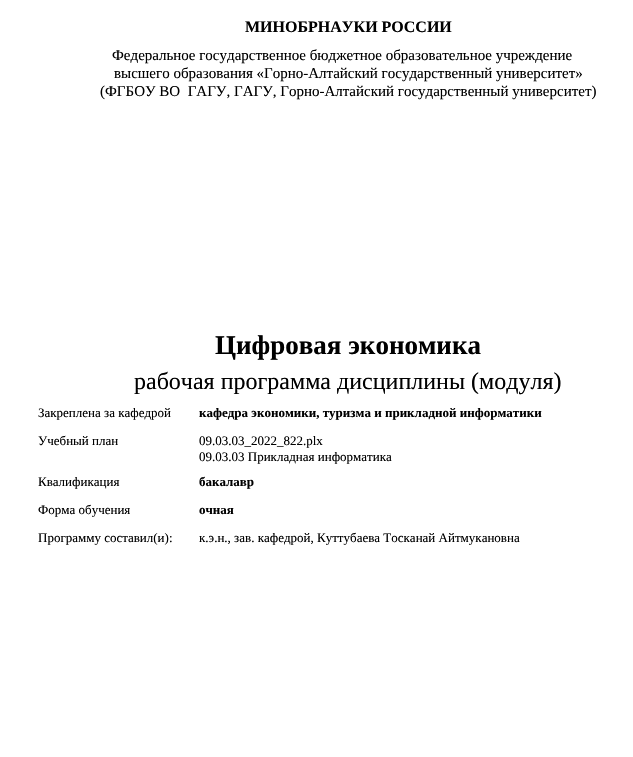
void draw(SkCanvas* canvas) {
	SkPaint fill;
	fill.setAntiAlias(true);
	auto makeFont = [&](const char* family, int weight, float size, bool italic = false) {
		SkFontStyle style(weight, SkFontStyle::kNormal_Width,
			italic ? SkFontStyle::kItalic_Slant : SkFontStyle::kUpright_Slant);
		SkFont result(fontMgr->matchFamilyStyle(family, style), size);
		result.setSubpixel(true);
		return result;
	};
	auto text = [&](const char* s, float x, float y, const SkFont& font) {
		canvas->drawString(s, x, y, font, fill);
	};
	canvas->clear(0xFFFFFFFF);
	auto font1 = makeFont("Liberation Serif", 700, 16);
	fill.setColor(0xFF000000);
	text("МИНОБРНАУКИ РОССИИ", 245, 32, font1);
	auto font2 = makeFont("Liberation Serif", 400, 15);
	text("Федеральное государственное бюджетное образовательное учреждение", 112, 60, font2);
	text("высшего образования «Горно-Алтайский государственный университет»", 114, 78, font2);
	text("(ФГБОУ ВО  ГАГУ, ГАГУ, Горно-Алтайский государственный университет)", 100, 96, font2);
	auto font3 = makeFont("Liberation Serif", 700, 27);
	text("Цифровая экономика", 215, 354, font3);
	auto font4 = makeFont("Liberation Serif", 400, 24);
	text("рабочая программа дисциплины (модуля)", 134, 389, font4);
	auto font5 = makeFont("Liberation Serif", 400, 13);
	text("Закреплена за кафедрой", 38, 417, font5);
	auto font6 = makeFont("Liberation Serif", 700, 13);
	text("кафедра экономики, туризма и прикладной информатики", 199, 417, font6);
	text("Учебный план", 38, 445, font5);
	text("09.03.03_2022_822.plx", 199, 445, font5);
	text("09.03.03 Прикладная информатика", 199, 461, font5);
	text("Квалификация", 38, 486, font5);
	text("бакалавр", 199, 486, font6);
	text("Форма обучения", 38, 514, font5);
	text("очная", 199, 514, font6);
	text("Программу составил(и):", 38, 542, font5);
	text("к.э.н., зав. кафедрой, Куттубаева Тосканай Айтмукановна", 199, 542, font5);
}
